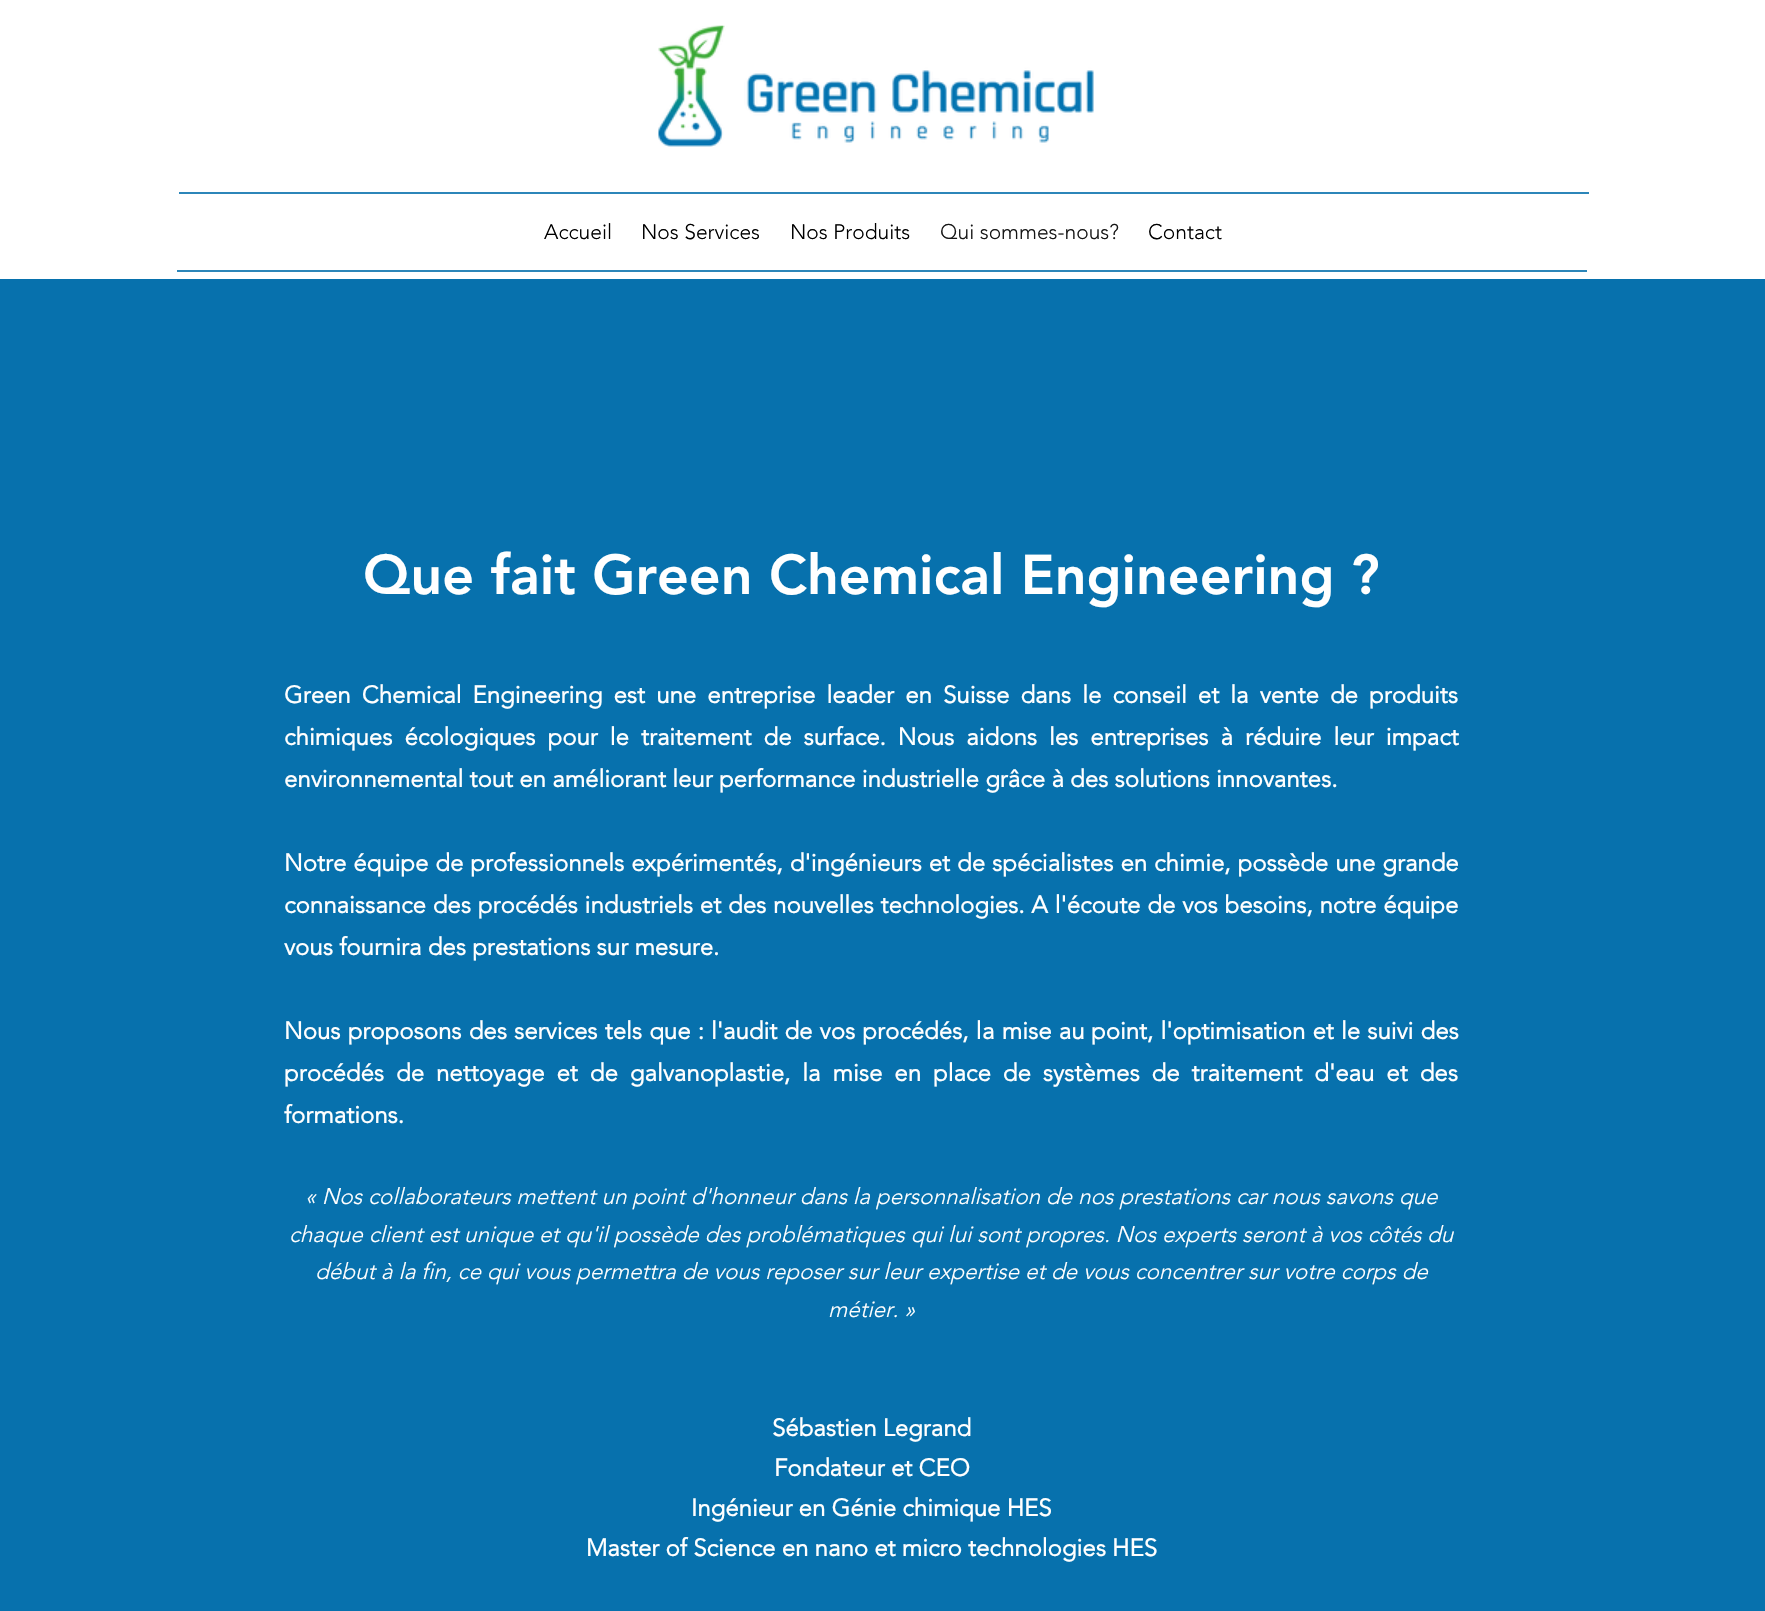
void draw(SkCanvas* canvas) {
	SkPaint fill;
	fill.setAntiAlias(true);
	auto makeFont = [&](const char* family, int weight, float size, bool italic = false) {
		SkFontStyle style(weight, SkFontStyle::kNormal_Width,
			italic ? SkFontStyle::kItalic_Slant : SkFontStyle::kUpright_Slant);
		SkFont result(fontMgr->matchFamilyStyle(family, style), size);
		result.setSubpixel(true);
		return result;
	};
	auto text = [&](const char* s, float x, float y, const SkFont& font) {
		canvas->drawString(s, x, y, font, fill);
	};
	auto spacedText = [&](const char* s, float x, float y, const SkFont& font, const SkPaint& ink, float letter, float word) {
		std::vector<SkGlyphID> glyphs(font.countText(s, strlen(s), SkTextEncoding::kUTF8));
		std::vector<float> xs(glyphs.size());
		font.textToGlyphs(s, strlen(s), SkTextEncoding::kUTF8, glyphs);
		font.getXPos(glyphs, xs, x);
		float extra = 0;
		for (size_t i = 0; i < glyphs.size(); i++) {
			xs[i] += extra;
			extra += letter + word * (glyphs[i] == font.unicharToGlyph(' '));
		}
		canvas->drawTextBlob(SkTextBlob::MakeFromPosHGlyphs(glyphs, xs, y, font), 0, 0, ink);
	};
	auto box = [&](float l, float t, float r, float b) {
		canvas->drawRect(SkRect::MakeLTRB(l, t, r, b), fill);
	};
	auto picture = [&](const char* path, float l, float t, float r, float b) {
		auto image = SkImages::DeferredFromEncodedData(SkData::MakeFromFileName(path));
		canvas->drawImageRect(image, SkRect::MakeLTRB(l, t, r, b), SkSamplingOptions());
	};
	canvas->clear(0xFFFFFFFF);
	picture("image0.png", 658, 25, 1094, 147);
	fill.setColor(0xFF2C86B9);
	box(179, 192, 1589, 194);
	box(177, 270, 1587, 272);
	fill.setColor(0xFF0771AD);
	box(0, 279, 1765, 1611);
	auto font1 = makeFont("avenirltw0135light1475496", 300, 21);
	fill.setColor(0xFF000000);
	text("Accueil", 544, 239, font1);
	text("Nos Services", 641, 239, font1);
	text("Nos Produits", 790, 239, font1);
	fill.setColor(0xFF161616);
	text("Qui sommes-nous?", 940, 239, font1);
	fill.setColor(0xFF000000);
	text("Contact", 1148, 239, font1);
	auto font2 = makeFont("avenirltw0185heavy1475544", 900, 55.5f);
	fill.setColor(0xFFFFFFFF);
	text("Que fait Green Chemical Engineering ?", 363, 594, font2);
	auto font3 = makeFont("avenirltw0135light1475496", 700, 24);
	spacedText("Green Chemical Engineering est une entreprise leader en Suisse dans le conseil et la vente de produits", 284, 703, font3, fill, 0, 4.9f);
	spacedText("chimiques écologiques pour le traitement de surface. Nous aidons les entreprises à réduire leur impact", 284, 745, font3, fill, 0, 5.75f);
	text("environnemental tout en améliorant leur performance industrielle grâce à des solutions innovantes.", 284, 787, font3);
	spacedText("Notre équipe de professionnels expérimentés, d'ingénieurs et de spécialistes en chimie, possède une grande", 284, 871, font3, fill, 0, 0.75f);
	spacedText("connaissance des procédés industriels et des nouvelles technologies. A l'écoute de vos besoins, notre équipe", 284, 913, font3, fill, 0, 0.6f);
	text("vous fournira des prestations sur mesure.", 284, 955, font3);
	spacedText("Nous proposons des services tels que : l'audit de vos procédés, l", 284, 1039, font3, fill, 0, 0.9f);
	spacedText("a mise au", 982, 1039, font3, fill, 0, 1);
	spacedText("point, l'optimisation et le suivi des", 1091, 1039, font3, fill, 0, 0.9f);
	spacedText("procédés de nettoyage et de galvanoplastie, la mise en place de systèmes de traitement d'eau et des", 284, 1081, font3, fill, 0, 5.75f);
	text("formations.", 284, 1123, font3);
	auto font4 = makeFont("avenirltw0135light1475496", 300, 22.5f, true);
	text("« Nos collaborateurs mettent un point d'honneur dans la personnalisation de nos prestations car nous savons que", 305, 1204, font4);
	text("chaque client est unique et qu'il possède des problématiques qui lui sont propres. Nos experts seront à vos côtés du", 289, 1242, font4);
	text("début à la fin, ce qui vous permettra de vous reposer sur leur expertise et de vous concentrer sur votre corps de", 315, 1279, font4);
	text("métier. »", 828, 1317, font4);
	text("Sébastien Legrand", 772, 1436, font3);
	text("Fondateur et CEO", 774, 1476, font3);
	text("Ingénieur en Génie chimique HES", 691, 1516, font3);
	text("Master of Science en nano et micro technologies HES", 586, 1556, font3);
}
